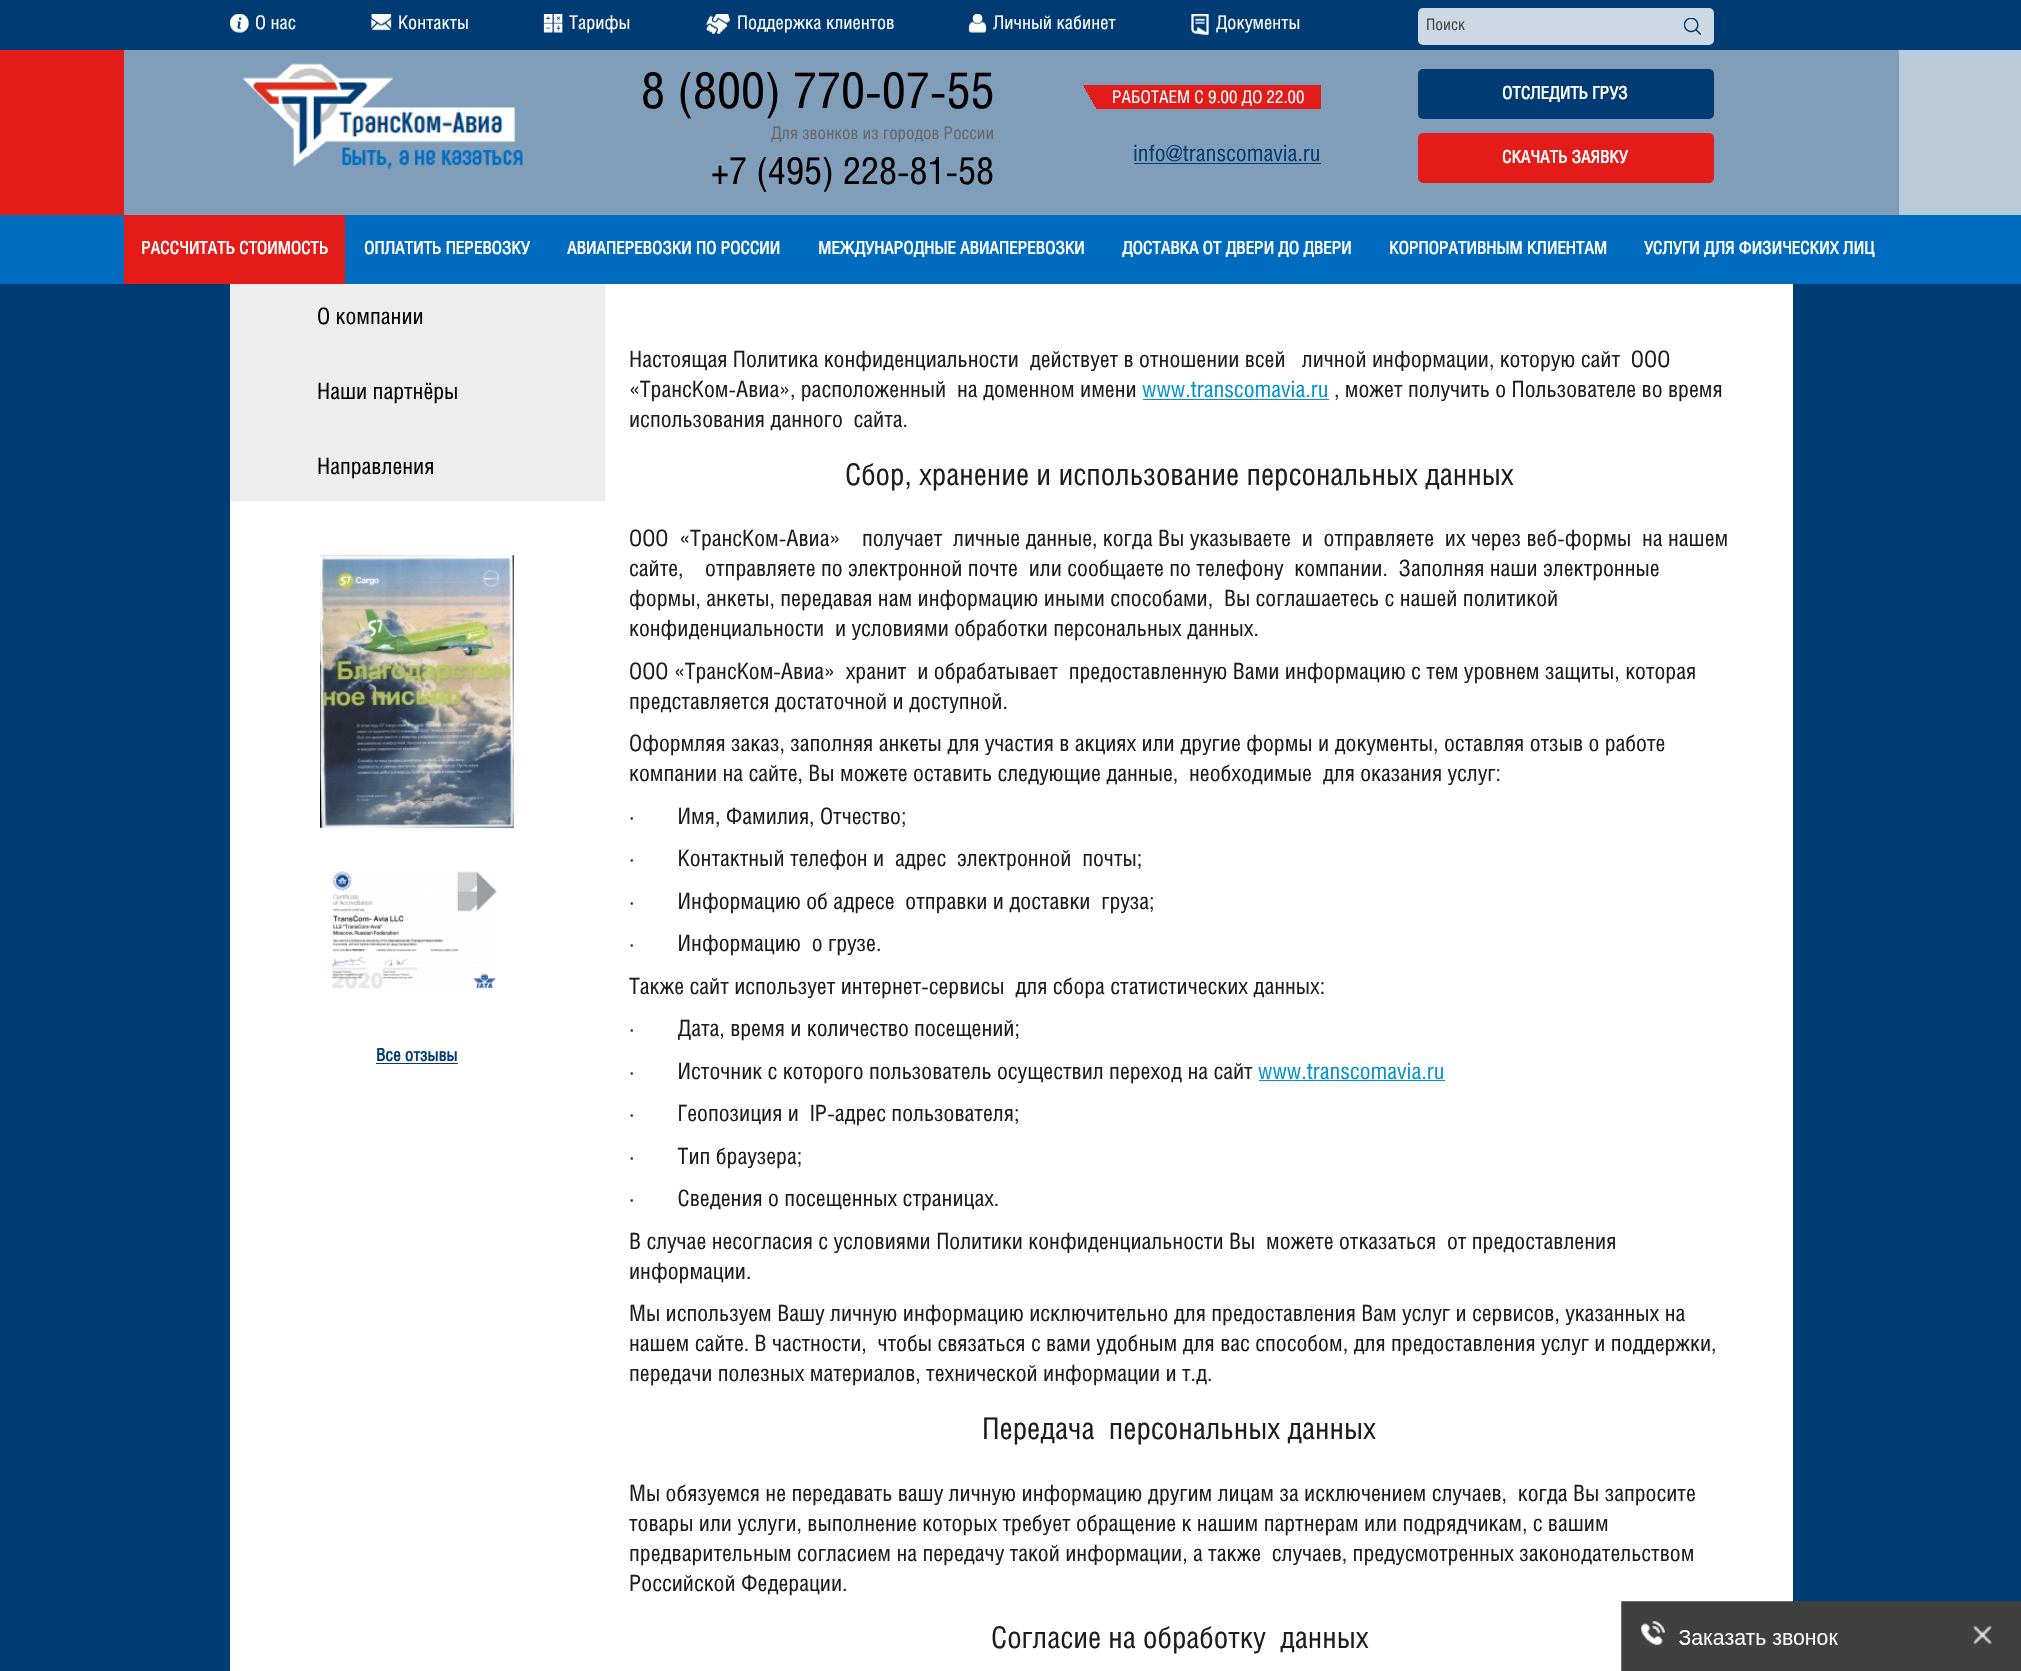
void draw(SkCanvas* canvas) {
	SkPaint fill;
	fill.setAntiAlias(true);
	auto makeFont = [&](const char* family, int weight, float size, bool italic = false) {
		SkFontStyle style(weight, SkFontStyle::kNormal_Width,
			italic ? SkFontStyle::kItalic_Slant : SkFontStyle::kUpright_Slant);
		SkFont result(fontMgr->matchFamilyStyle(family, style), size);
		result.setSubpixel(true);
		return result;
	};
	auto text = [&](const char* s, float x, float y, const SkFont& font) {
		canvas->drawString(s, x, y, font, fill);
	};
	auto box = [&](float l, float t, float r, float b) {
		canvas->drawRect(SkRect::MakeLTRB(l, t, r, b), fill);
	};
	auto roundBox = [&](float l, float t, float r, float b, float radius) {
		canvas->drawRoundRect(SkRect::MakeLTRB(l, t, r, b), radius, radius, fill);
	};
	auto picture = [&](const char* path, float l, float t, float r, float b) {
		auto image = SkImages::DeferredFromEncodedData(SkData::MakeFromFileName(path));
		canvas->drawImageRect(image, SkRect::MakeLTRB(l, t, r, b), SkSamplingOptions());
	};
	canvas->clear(0xFF003C73);
	picture("image0.png", 230, 14, 249, 33);
	picture("image1.png", 371, 14, 392, 31);
	picture("image2.png", 543, 14, 563, 33);
	picture("image3.png", 706, 14, 730, 34);
	picture("image4.png", 968, 14, 987, 33);
	picture("image5.png", 1191, 14, 1209, 36);
	fill.setColor(0xFFCCD8E3);
	roundBox(1418, 8, 1714, 45, 5);
	picture("image6.png", 1684, 18, 1701, 35);
	fill.setColor(0xFF809EB9);
	box(124, 50, 1899, 215);
	fill.setColor(0xFFE31B19);
	box(0, 50, 124, 215);
	picture("image7.png", 242, 63, 523, 169);
	{
		const SkColor colors[] = {0xFF809EB9, 0xFFE31C19};
		const float stops[] = {0.08f, 0.08f};
		const SkPoint ends[] = {{1101, 153}, {1296, 41}};
		fill.setShader(SkGradientShader::MakeLinear(ends, colors, stops, 2, SkTileMode::kClamp));
		fill.setAlpha(255);
	}
	box(1083, 85, 1321, 109);
	fill.setShader(nullptr);
	fill.setColor(0xFF003B73);
	box(1134, 163, 1321, 164);
	roundBox(1418, 69, 1714, 119, 5);
	fill.setColor(0xFFE31C19);
	roundBox(1418, 133, 1714, 183, 5);
	fill.setColor(0xFFB9CAD9);
	box(1899, 50, 2021, 215);
	fill.setColor(0xFF006CC0);
	box(0, 215, 2021, 284);
	fill.setColor(0xFFE31B19);
	box(124, 215, 345, 284);
	fill.setColor(0xFFFFFFFF);
	box(230, 284, 1793, 1671);
	fill.setColor(0xFFEDEDED);
	box(230, 284, 605, 501);
	picture("image8.png", 320, 555, 514, 828);
	picture("image9.png", 331, 871, 497, 989);
	fill.setColor(0xFF003C73);
	box(376, 1063, 458, 1064);
	fill.setColor(0xFF0093CB);
	box(1143, 399, 1329, 400);
	box(1259, 1080, 1445, 1081);
	picture("image10.png", 1621, 1601, 2021, 1671);
	auto font1 = makeFont("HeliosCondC", 400, 18.75f);
	fill.setColor(0xFFFFFFFF);
	text("О нас", 255, 29, font1);
	text("Контакты", 398, 29, font1);
	text("Тарифы", 569, 29, font1);
	text("Поддержка клиентов", 737, 29, font1);
	text("Личный кабинет", 993, 29, font1);
	text("Документы", 1216, 29, font1);
	auto font2 = makeFont("HeliosCondC", 400, 16);
	fill.setColor(0xFF434343);
	text("Поиск", 1426, 30, font2);
	auto font3 = makeFont("HeliosCondC", 400, 50);
	fill.setColor(0xFF000000);
	text("8 (800) 770-07-55", 641, 108, font3);
	auto font4 = makeFont("HeliosCondC", 400, 17.5f);
	fill.setColor(0xFF666666);
	text("Для звонков из городов России", 771, 139, font4);
	auto font5 = makeFont("HeliosCondC", 400, 37.5f);
	fill.setColor(0xFF000000);
	text("+7 (495) 228-81-58", 711, 184, font5);
	fill.setColor(0xFFFFFFFF);
	text("РАБОТАЕМ С 9.00 ДО 22.00", 1112, 103, font4);
	auto font6 = makeFont("HeliosCondC", 400, 22.5f);
	fill.setColor(0xFF003C73);
	text("info@transcomavia.ru", 1133, 161, font6);
	auto font7 = makeFont("HeliosCondC", 700, 17.5f);
	fill.setColor(0xFFFFFFFF);
	text("ОТСЛЕДИТЬ ГРУЗ", 1502, 99, font7);
	text("СКАЧАТЬ ЗАЯВКУ", 1502, 163, font7);
	text("РАССЧИТАТЬ СТОИМОСТЬ", 141, 254, font7);
	text("ОПЛАТИТЬ ПЕРЕВОЗКУ", 364, 254, font7);
	text("АВИАПЕРЕВОЗКИ ПО РОССИИ", 567, 254, font7);
	text("МЕЖДУНАРОДНЫЕ АВИАПЕРЕВОЗКИ", 818, 254, font7);
	text("ДОСТАВКА ОТ ДВЕРИ ДО ДВЕРИ", 1122, 254, font7);
	text("КОРПОРАТИВНЫМ КЛИЕНТАМ", 1389, 254, font7);
	text("УСЛУГИ ДЛЯ ФИЗИЧЕСКИХ ЛИЦ", 1644, 254, font7);
	fill.setColor(0xFF000000);
	text("О компании", 317, 324, font6);
	text("Наши партнёры", 317, 399, font6);
	text("Направления", 317, 474, font6);
	fill.setColor(0xFF003C73);
	text("Все отзывы", 376, 1061, font7);
	fill.setColor(0xFF1D1D1D);
	text("Настоящая Политика конфиденциальности  действует в отношении всей   личной информации, которую сайт  ООО", 629, 367, font6);
	text("«ТрансКом-Авиа», расположенный  на доменном имени", 629, 397, font6);
	fill.setColor(0xFF0093CB);
	text("www.transcomavia.ru", 1142, 397, font6);
	fill.setColor(0xFF1D1D1D);
	text(", может получить о Пользователе во время", 1334, 397, font6);
	text("использования данного  сайта.", 629, 427, font6);
	auto font8 = makeFont("HeliosCondC", 400, 30);
	text("Сбор, хранение и использование персональных данных", 845, 485, font8);
	text("ООО  «ТрансКом-Авиа»    получает  личные данные, когда Вы указываете  и  отправляете  их через веб-формы  на нашем", 629, 546, font6);
	text("сайте,    отправляете по электронной почте  или сообщаете по телефону  компании.  Заполняя наши электронные", 629, 576, font6);
	text("формы, анкеты, передавая нам информацию иными способами,  Вы соглашаетесь с нашей политикой", 629, 606, font6);
	text("конфиденциальности  и условиями обработки персональных данных.", 629, 636, font6);
	text("ООО «ТрансКом-Авиа»  хранит  и обрабатывает  предоставленную Вами информацию с тем уровнем защиты, которая", 629, 679, font6);
	text("представляется достаточной и доступной.", 629, 709, font6);
	text("Оформляя заказ, заполняя анкеты для участия в акциях или другие формы и документы, оставляя отзыв о работе", 629, 751, font6);
	text("компании на сайте, Вы можете оставить следующие данные,  необходимые  для оказания услуг:", 629, 781, font6);
	text("·        Имя, Фамилия, Отчество;", 629, 824, font6);
	text("·        Контактный телефон и  адрес  электронной  почты;", 629, 866, font6);
	text("·        Информацию об адресе  отправки и доставки  груза;", 629, 909, font6);
	text("·        Информацию  о грузе.", 629, 951, font6);
	text("Также сайт использует интернет-сервисы  для сбора статистических данных:", 629, 994, font6);
	text("·        Дата, время и количество посещений;", 629, 1036, font6);
	text("·        Источник с которого пользователь осуществил переход на сайт", 629, 1079, font6);
	fill.setColor(0xFF0093CB);
	text("www.transcomavia.ru", 1258, 1079, font6);
	fill.setColor(0xFF1D1D1D);
	text("·        Геопозиция и  IP-адрес пользователя;", 629, 1121, font6);
	text("·        Тип браузера;", 629, 1164, font6);
	text("·        Сведения о посещенных страницах.", 629, 1206, font6);
	text("В случае несогласия с условиями Политики конфиденциальности Вы  можете отказаться  от предоставления", 629, 1249, font6);
	text("информации.", 629, 1279, font6);
	text("Мы используем Вашу личную информацию исключительно для предоставления Вам услуг и сервисов, указанных на", 629, 1321, font6);
	text("нашем сайте. В частности,  чтобы связаться с вами удобным для вас способом, для предоставления услуг и поддержки,", 629, 1351, font6);
	text("передачи полезных материалов, технической информации и т.д.", 629, 1381, font6);
	text("Передача  персональных данных", 982, 1439, font8);
	text("Мы обязуемся не передавать вашу личную информацию другим лицам за исключением случаев,  когда Вы запросите", 629, 1501, font6);
	text("товары или услуги, выполнение которых требует обращение к нашим партнерам или подрядчикам, с вашим", 629, 1531, font6);
	text("предварительным согласием на передачу такой информации, а также  случаев, предусмотренных законодательством", 629, 1561, font6);
	text("Российской Федерации.", 629, 1591, font6);
	text("Согласие на обработку  данных", 991, 1648, font8);
}
